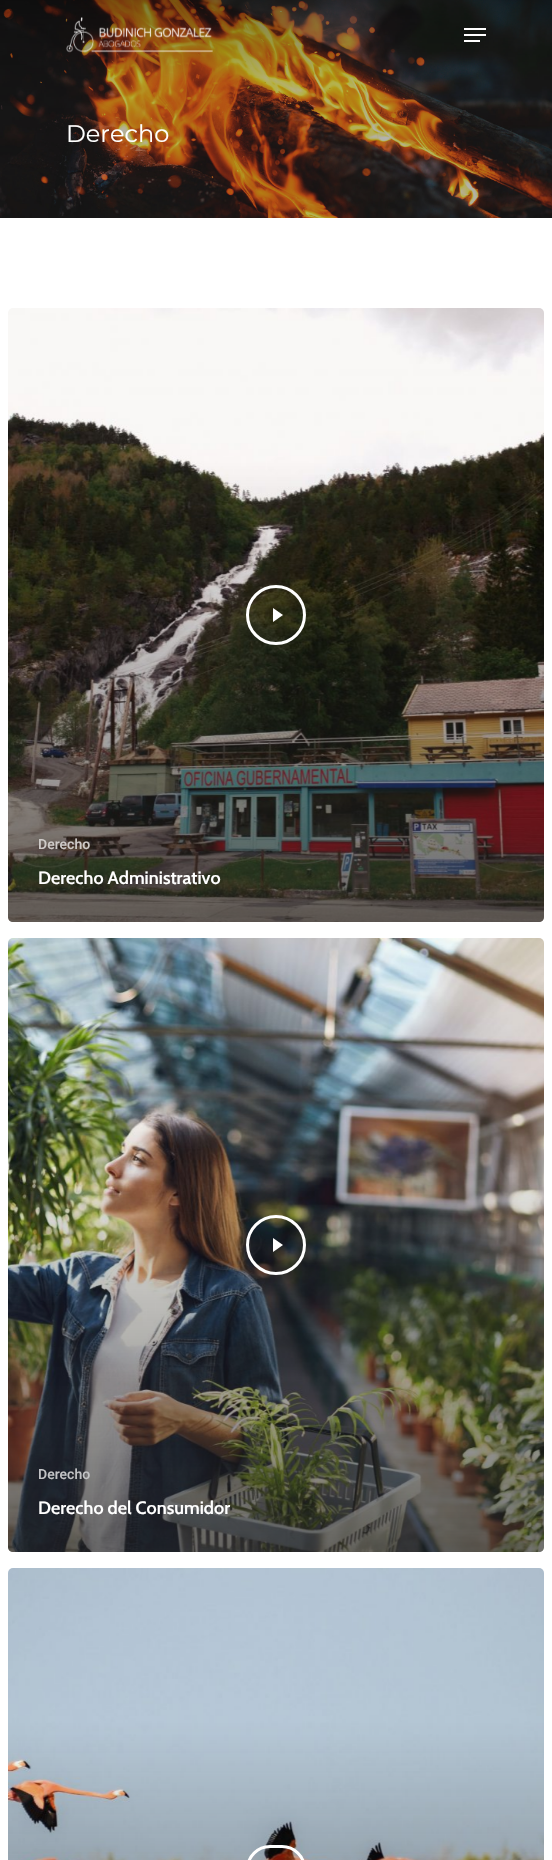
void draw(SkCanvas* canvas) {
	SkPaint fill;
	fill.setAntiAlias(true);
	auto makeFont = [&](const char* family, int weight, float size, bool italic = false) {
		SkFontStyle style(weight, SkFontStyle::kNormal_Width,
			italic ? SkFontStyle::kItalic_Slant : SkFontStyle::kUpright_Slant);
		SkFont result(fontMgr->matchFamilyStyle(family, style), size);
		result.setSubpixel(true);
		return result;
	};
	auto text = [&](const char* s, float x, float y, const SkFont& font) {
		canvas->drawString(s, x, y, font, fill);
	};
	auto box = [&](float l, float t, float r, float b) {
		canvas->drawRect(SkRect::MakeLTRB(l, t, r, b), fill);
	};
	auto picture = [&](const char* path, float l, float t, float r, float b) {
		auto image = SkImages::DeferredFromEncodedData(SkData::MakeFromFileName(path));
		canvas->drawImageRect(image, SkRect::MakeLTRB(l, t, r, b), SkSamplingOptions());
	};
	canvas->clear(0xFFFFFFFF);
	picture("image1.png", 0, 0, 552, 218);
	picture("image0.png", 66, 17, 213, 53);
	fill.setColor(0xFFFFFFFF);
	box(464, 28, 486, 30);
	box(464, 40, 480, 42);
	box(464, 34, 486, 36);
	picture("image2.png", 8, 308, 544, 922);
	{
		const SkColor colors[] = {0x00232323, 0xA6232323};
		const float stops[] = {0, 1};
		const SkPoint ends[] = {{278, 462}, {278, 925}};
		fill.setShader(SkGradientShader::MakeLinear(ends, colors, stops, 2, SkTileMode::kClamp));
		fill.setAlpha(255);
	}
	canvas->drawPath(SkPathBuilder().moveTo(8, 462).lineTo(544, 462).lineTo(544, 917).cubicTo(544, 920, 542, 922, 539, 922).lineTo(13, 922).cubicTo(10, 922, 8, 920, 8, 917).close().detach(), fill);
	fill.setShader(nullptr);
	fill.setColor(0xFFFFFFFF);
	canvas->drawPath(SkPathBuilder().moveTo(273, 608).lineTo(273, 622).lineTo(283, 615).close().detach(), fill);
	fill.setStyle(SkPaint::kStroke_Style);
	fill.setStrokeWidth(3);
	canvas->drawCircle(276, 615, 28.5f, fill);
	picture("image3.png", 8, 938, 544, 1552);
	fill.setStyle(SkPaint::kFill_Style);
	{
		const SkColor colors[] = {0x00232323, 0xA6232323};
		const float stops[] = {0, 1};
		const SkPoint ends[] = {{278, 1092}, {278, 1555}};
		fill.setShader(SkGradientShader::MakeLinear(ends, colors, stops, 2, SkTileMode::kClamp));
		fill.setAlpha(255);
	}
	canvas->drawPath(SkPathBuilder().moveTo(8, 1092).lineTo(544, 1092).lineTo(544, 1547).cubicTo(544, 1550, 542, 1552, 539, 1552).lineTo(13, 1552).cubicTo(10, 1552, 8, 1550, 8, 1547).close().detach(), fill);
	fill.setShader(nullptr);
	fill.setColor(0xFFFFFFFF);
	canvas->drawPath(SkPathBuilder().moveTo(273, 1238).lineTo(273, 1252).lineTo(283, 1245).close().detach(), fill);
	fill.setStyle(SkPaint::kStroke_Style);
	canvas->drawCircle(276, 1245, 28.5f, fill);
	picture("image4.png", 8, 1568, 544, 1860);
	canvas->drawRoundRect(SkRect::MakeLTRB(247.5f, 1846.5f, 304.5f, 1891.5f), 28.5f, 28.5f, fill);
	auto font1 = makeFont("Montserrat", 100, 24);
	fill.setStyle(SkPaint::kFill_Style);
	text("Derecho", 66, 142, font1);
	auto font2 = makeFont("Roboto", 500, 14);
	fill.setColor(0xFFCFCBC9);
	text("Derecho", 38, 849, font2);
	auto font3 = makeFont("Cabin", 600, 18);
	fill.setColor(0xFFFFFFFF);
	text("Derecho Administrativo", 38, 884, font3);
	fill.setColor(0xFFC3C4C6);
	text("Derecho", 38, 1479, font2);
	fill.setColor(0xFFFFFFFF);
	text("Derecho del Consumidor", 38, 1514, font3);
}
